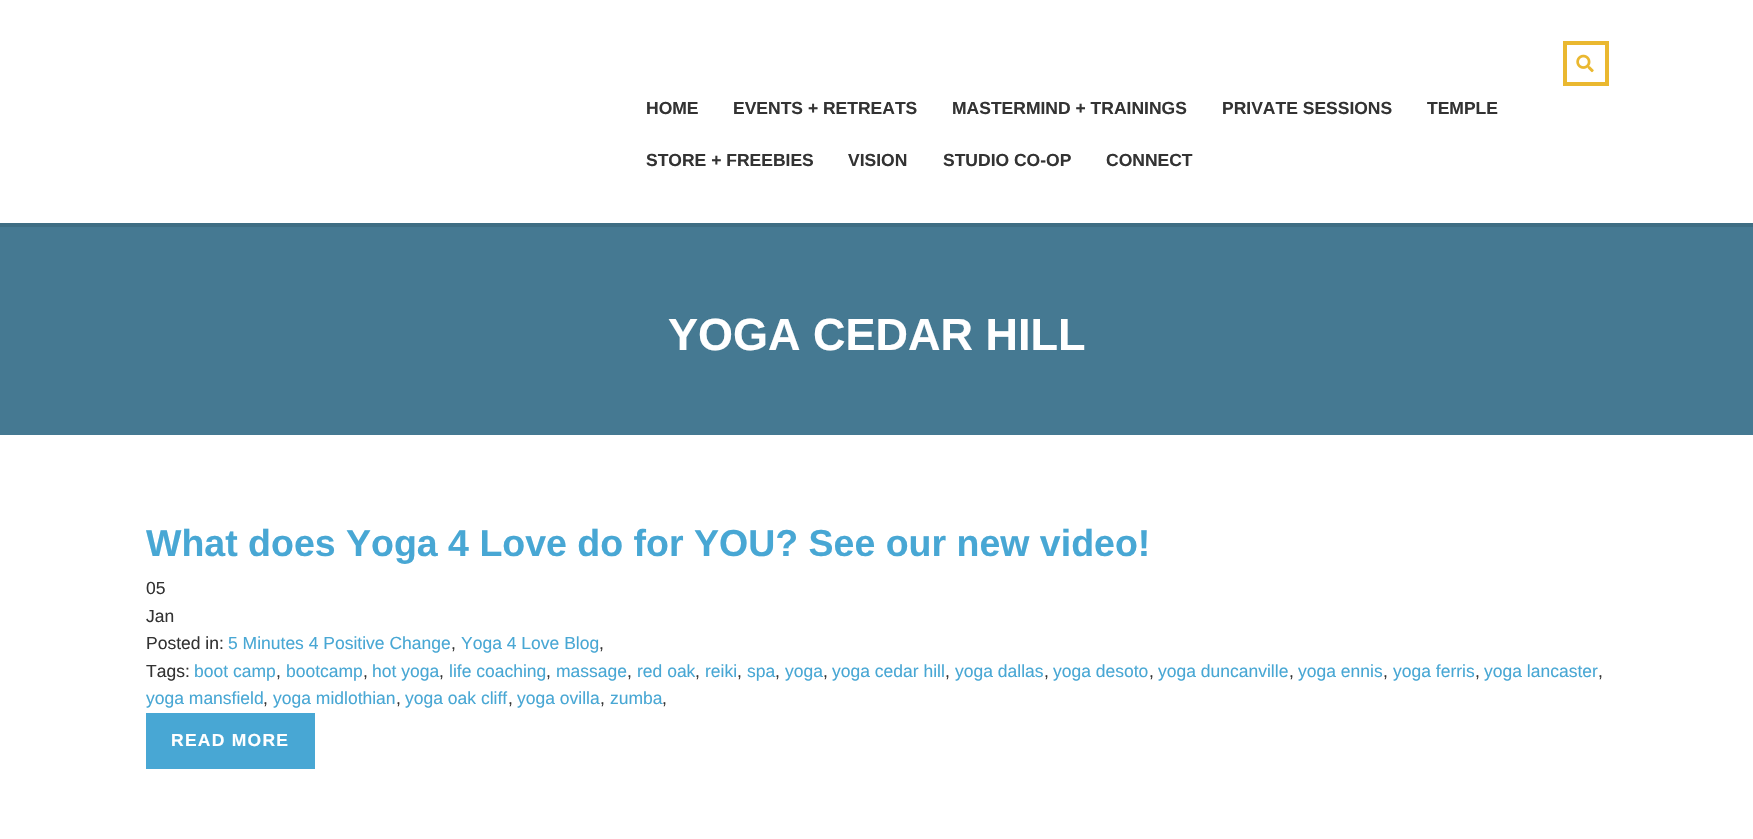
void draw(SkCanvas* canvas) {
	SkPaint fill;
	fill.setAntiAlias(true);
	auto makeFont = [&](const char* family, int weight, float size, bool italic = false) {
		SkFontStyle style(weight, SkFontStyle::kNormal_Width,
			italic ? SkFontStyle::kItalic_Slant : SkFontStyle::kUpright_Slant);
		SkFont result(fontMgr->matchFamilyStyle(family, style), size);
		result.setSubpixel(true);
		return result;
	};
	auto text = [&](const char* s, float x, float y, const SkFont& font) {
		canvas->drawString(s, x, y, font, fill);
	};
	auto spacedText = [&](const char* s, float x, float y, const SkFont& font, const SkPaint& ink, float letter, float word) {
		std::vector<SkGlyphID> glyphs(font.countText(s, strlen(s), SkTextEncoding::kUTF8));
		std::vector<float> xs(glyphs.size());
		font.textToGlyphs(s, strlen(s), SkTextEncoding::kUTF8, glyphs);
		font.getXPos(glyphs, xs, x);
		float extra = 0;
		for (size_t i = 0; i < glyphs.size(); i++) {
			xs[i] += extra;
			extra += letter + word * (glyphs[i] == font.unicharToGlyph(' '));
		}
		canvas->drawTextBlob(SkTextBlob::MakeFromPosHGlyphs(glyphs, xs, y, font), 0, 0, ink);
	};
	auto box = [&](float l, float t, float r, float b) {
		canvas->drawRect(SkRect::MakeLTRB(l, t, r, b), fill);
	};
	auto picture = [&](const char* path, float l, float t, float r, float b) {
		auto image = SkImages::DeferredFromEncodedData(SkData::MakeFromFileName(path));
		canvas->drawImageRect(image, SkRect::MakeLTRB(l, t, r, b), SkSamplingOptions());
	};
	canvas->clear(0xFFFFFFFF);
	fill.setStyle(SkPaint::kStroke_Style);
	fill.setStrokeWidth(4);
	fill.setColor(0xFFEAB830);
	canvas->drawRect(SkRect::MakeLTRB(1565, 43, 1607, 84), fill);
	picture("image0.png", 1576, 54, 1594, 73);
	fill.setStyle(SkPaint::kFill_Style);
	fill.setColor(0xFF3E6D83);
	box(0, 223, 1753, 227);
	fill.setColor(0xFF457992);
	box(0, 227, 1753, 435);
	fill.setColor(0xFF48A7D4);
	box(146, 713, 315, 769);
	auto font1 = makeFont("Liberation Sans", 700, 17.5f);
	fill.setColor(0xFF333333);
	text("HOME", 646, 114, font1);
	text("EVENTS + RETREATS", 733, 114, font1);
	text("MASTERMIND + TRAININGS", 952, 114, font1);
	text("PRIVATE SESSIONS", 1222, 114, font1);
	text("TEMPLE", 1427, 114, font1);
	text("STORE + FREEBIES", 646, 166, font1);
	text("VISION", 848, 166, font1);
	text("STUDIO CO-OP", 943, 166, font1);
	text("CONNECT", 1106, 166, font1);
	auto font2 = makeFont("Liberation Sans", 700, 45);
	fill.setColor(0xFFFFFFFF);
	text("YOGA CEDAR HILL", 668, 350, font2);
	auto font3 = makeFont("Liberation Sans", 700, 37.5f);
	fill.setColor(0xFF48A7D4);
	text("What does Yoga 4 Love do for YOU? See our new video!", 146, 556, font3);
	auto font4 = makeFont("Liberation Sans", 400, 17.5f);
	fill.setColor(0xFF333333);
	text("05", 146, 594, font4);
	text("Jan", 146, 622, font4);
	text("Posted in:", 146, 649, font4);
	fill.setColor(0xFF48A7D4);
	text("5 Minutes 4 Positive Change", 228, 649, font4);
	fill.setColor(0xFF333333);
	text(",", 451, 649, font4);
	fill.setColor(0xFF48A7D4);
	text("Yoga 4 Love Blog", 461, 649, font4);
	fill.setColor(0xFF333333);
	text(",", 599, 649, font4);
	text("Tags:", 146, 677, font4);
	fill.setColor(0xFF48A7D4);
	text("boot camp", 194, 677, font4);
	fill.setColor(0xFF333333);
	text(",", 276, 677, font4);
	fill.setColor(0xFF48A7D4);
	text("bootcamp", 286, 677, font4);
	fill.setColor(0xFF333333);
	text(",", 363, 677, font4);
	fill.setColor(0xFF48A7D4);
	text("hot yoga", 372, 677, font4);
	fill.setColor(0xFF333333);
	text(",", 439, 677, font4);
	fill.setColor(0xFF48A7D4);
	text("life coaching", 449, 677, font4);
	fill.setColor(0xFF333333);
	text(",", 546, 677, font4);
	fill.setColor(0xFF48A7D4);
	text("massage", 556, 677, font4);
	fill.setColor(0xFF333333);
	text(",", 627, 677, font4);
	fill.setColor(0xFF48A7D4);
	text("red oak", 637, 677, font4);
	fill.setColor(0xFF333333);
	text(",", 695, 677, font4);
	fill.setColor(0xFF48A7D4);
	text("reiki", 705, 677, font4);
	fill.setColor(0xFF333333);
	text(",", 737, 677, font4);
	fill.setColor(0xFF48A7D4);
	text("spa", 747, 677, font4);
	fill.setColor(0xFF333333);
	text(",", 775, 677, font4);
	fill.setColor(0xFF48A7D4);
	text("yoga", 785, 677, font4);
	fill.setColor(0xFF333333);
	text(",", 823, 677, font4);
	fill.setColor(0xFF48A7D4);
	text("yoga cedar hill", 832, 677, font4);
	fill.setColor(0xFF333333);
	text(",", 945, 677, font4);
	fill.setColor(0xFF48A7D4);
	text("yoga dallas", 955, 677, font4);
	fill.setColor(0xFF333333);
	text(",", 1044, 677, font4);
	fill.setColor(0xFF48A7D4);
	text("yoga desoto", 1053, 677, font4);
	fill.setColor(0xFF333333);
	text(",", 1149, 677, font4);
	fill.setColor(0xFF48A7D4);
	text("yoga duncanville", 1158, 677, font4);
	fill.setColor(0xFF333333);
	text(",", 1289, 677, font4);
	fill.setColor(0xFF48A7D4);
	text("yoga ennis", 1298, 677, font4);
	fill.setColor(0xFF333333);
	text(",", 1383, 677, font4);
	fill.setColor(0xFF48A7D4);
	text("yoga ferris", 1393, 677, font4);
	fill.setColor(0xFF333333);
	text(",", 1475, 677, font4);
	fill.setColor(0xFF48A7D4);
	text("yoga lancaster", 1484, 677, font4);
	fill.setColor(0xFF333333);
	text(",", 1598, 677, font4);
	fill.setColor(0xFF48A7D4);
	text("yoga mansfield", 146, 704, font4);
	fill.setColor(0xFF333333);
	text(",", 263, 704, font4);
	fill.setColor(0xFF48A7D4);
	text("yoga midlothian", 273, 704, font4);
	fill.setColor(0xFF333333);
	text(",", 396, 704, font4);
	fill.setColor(0xFF48A7D4);
	text("yoga oak cliff", 405, 704, font4);
	fill.setColor(0xFF333333);
	text(",", 508, 704, font4);
	fill.setColor(0xFF48A7D4);
	text("yoga ovilla", 517, 704, font4);
	fill.setColor(0xFF333333);
	text(",", 600, 704, font4);
	fill.setColor(0xFF48A7D4);
	text("zumba", 610, 704, font4);
	fill.setColor(0xFF333333);
	text(",", 662, 704, font4);
	fill.setColor(0xFFFFFFFF);
	spacedText("READ MORE", 171, 746, font1, fill, 1.25f, 0);
}
